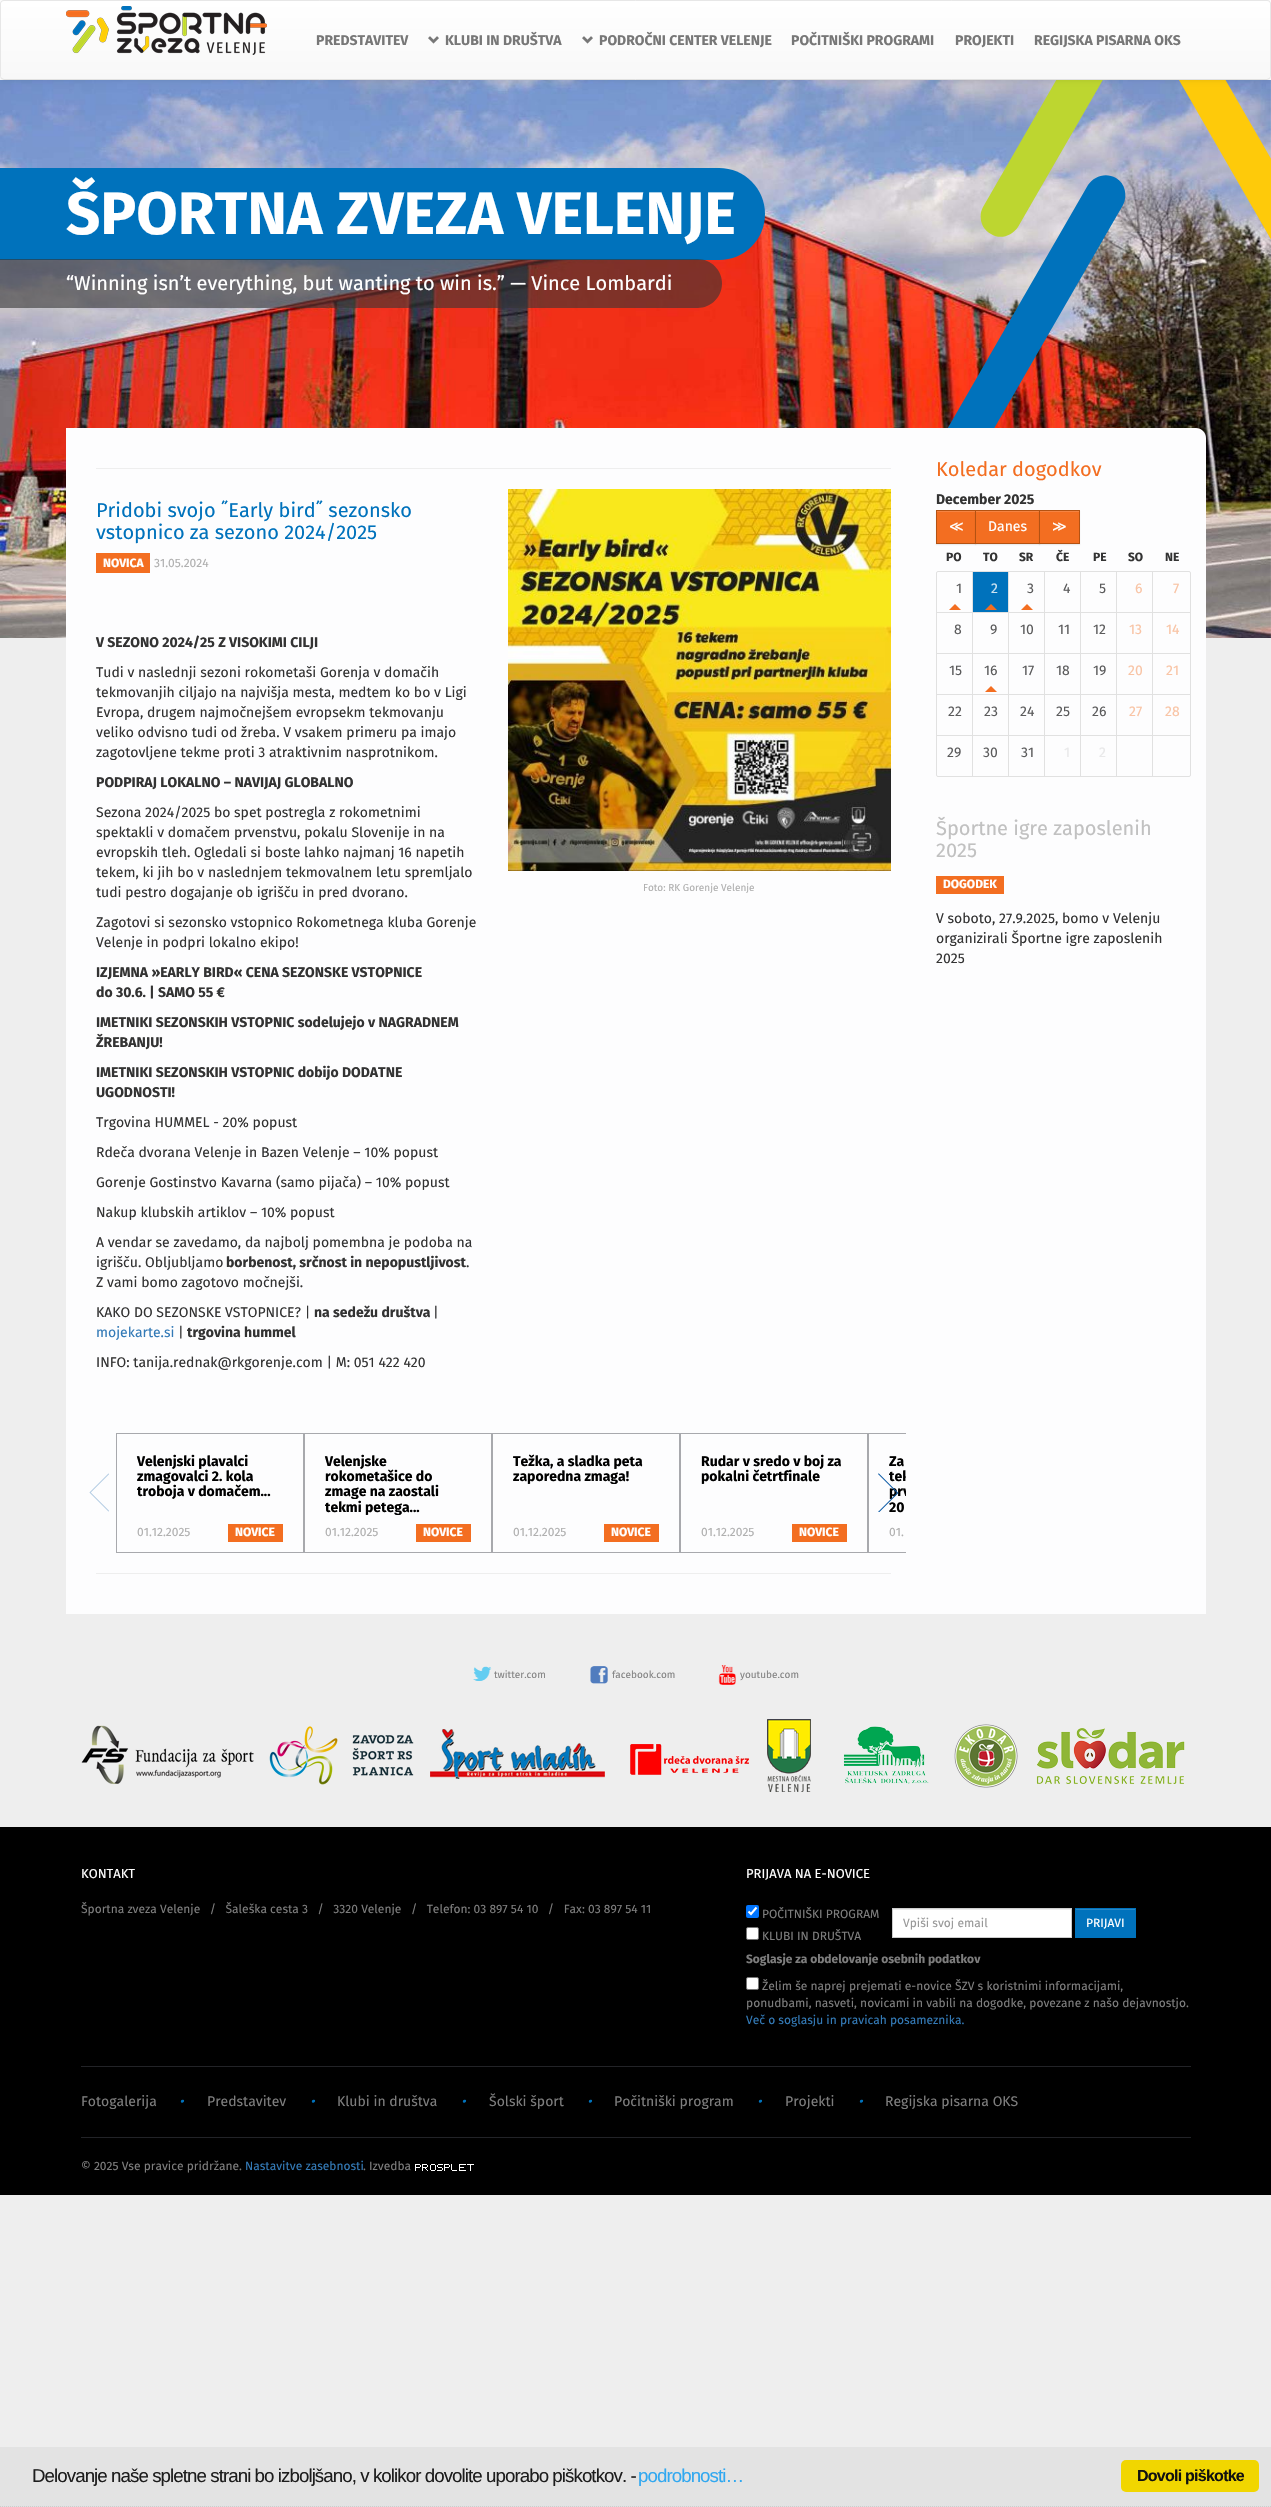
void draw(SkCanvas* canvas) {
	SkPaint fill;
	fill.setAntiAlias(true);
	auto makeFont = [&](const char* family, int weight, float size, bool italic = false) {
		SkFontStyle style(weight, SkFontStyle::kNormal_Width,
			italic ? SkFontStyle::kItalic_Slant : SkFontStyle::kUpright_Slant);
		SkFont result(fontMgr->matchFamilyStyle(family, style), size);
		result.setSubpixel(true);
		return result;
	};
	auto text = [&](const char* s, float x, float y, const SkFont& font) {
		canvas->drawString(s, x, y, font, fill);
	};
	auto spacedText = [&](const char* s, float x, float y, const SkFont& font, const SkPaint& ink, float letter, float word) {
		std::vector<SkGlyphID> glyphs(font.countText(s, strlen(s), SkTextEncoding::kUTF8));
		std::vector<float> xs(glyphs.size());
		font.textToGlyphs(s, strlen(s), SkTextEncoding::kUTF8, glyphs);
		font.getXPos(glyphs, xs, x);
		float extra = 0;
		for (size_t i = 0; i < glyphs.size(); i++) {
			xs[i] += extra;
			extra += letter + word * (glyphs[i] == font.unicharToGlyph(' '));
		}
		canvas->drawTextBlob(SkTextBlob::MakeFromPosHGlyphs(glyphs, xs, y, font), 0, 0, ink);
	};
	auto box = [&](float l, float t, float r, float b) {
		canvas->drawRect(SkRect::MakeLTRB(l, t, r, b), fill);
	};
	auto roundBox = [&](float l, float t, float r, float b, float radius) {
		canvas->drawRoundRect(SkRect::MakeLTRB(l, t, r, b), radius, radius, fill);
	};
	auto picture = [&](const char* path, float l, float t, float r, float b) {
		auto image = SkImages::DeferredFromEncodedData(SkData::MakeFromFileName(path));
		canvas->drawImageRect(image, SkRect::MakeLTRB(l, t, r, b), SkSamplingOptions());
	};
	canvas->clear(0xFFEEEEEE);
	fill.setColor(0xFFFFFFFF);
	box(0, 0, 1271, 80);
	picture("image2.png", 0, 80, 1271, 638);
	fill.setColor(0xFF0072BC);
	canvas->drawPath(SkPathBuilder().moveTo(908, 497).lineTo(1088, 185).cubicTo(1094, 176, 1106, 172, 1116, 178).cubicTo(1125, 183, 1128, 196, 1123, 205).lineTo(943, 517).cubicTo(937, 526, 925, 530, 916, 524).cubicTo(906, 519, 903, 506, 908, 497).close().detach(), fill);
	fill.setColor(0xFFBDD630);
	canvas->drawPath(SkPathBuilder().moveTo(1198, -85).lineTo(1018, 227).cubicTo(1012, 236, 1000, 240, 991, 234).cubicTo(981, 229, 978, 216, 983, 207).lineTo(1163, -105).cubicTo(1169, -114, 1181, -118, 1191, -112).cubicTo(1200, -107, 1203, -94, 1198, -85).close().detach(), fill);
	fill.setColor(0xFFFECA0A);
	canvas->drawPath(SkPathBuilder().moveTo(1188, 15).lineTo(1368, 327).cubicTo(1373, 336, 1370, 349, 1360, 354).cubicTo(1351, 360, 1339, 356, 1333, 347).lineTo(1153, 35).cubicTo(1148, 26, 1151, 13, 1160, 8).cubicTo(1170, 2, 1182, 6, 1188, 15).close().detach(), fill);
	fill.setColor(0x12000000);
	fill.setMaskFilter(SkMaskFilter::MakeBlur(kNormal_SkBlurStyle, 2.5f));
	canvas->drawRoundRect(SkRect::MakeLTRB(0, 1, 1271, 81), 4, 4, fill);
	fill.setMaskFilter(nullptr);
	fill.setColor(0xFFF8F8F8);
	roundBox(0, 0, 1271, 80, 4);
	canvas->save();
	canvas->clipPath(SkPathBuilder().moveTo(4, 0).lineTo(1267, 0).cubicTo(1269, 0, 1271, 2, 1271, 4).lineTo(1271, 76).cubicTo(1271, 78, 1269, 80, 1267, 80).lineTo(4, 80).cubicTo(2, 80, 0, 78, 0, 76).lineTo(0, 4).cubicTo(0, 2, 2, 0, 4, 0).close().detach(), true);
	{
		const SkColor colors[] = {0xFFFFFFFF, 0xFFF8F8F8};
		const float stops[] = {0, 1};
		const SkPoint ends[] = {{636, 1}, {636, 79}};
		fill.setShader(SkGradientShader::MakeLinear(ends, colors, stops, 2, SkTileMode::kClamp));
		fill.setAlpha(255);
	}
	box(0, 1, 1271, 79);
	canvas->restore();
	fill.setStyle(SkPaint::kStroke_Style);
	fill.setStrokeWidth(1);
	fill.setShader(nullptr);
	fill.setColor(0xFFE1E1E0);
	canvas->drawPath(SkPathBuilder().moveTo(1269.5f, 78.5f).lineTo(1267, 79.5f).lineTo(4, 79.5f).lineTo(1.5f, 78.5f).detach(), fill);
	fill.setColor(0xFFE7E7E7);
	canvas->drawPath(SkPathBuilder().moveTo(1.5f, 78.5f).lineTo(0.5f, 76.5f).lineTo(0.5f, 3).cubicTo(1, 1.5f, 2.5f, 0.5f, 4, 0.5f).lineTo(1267, 0.5f).cubicTo(1268.5f, 0.5f, 1270, 1.5f, 1270.5f, 3).lineTo(1270.5f, 76.5f).lineTo(1269.5f, 78.5f).detach(), fill);
	picture("image0.png", 66, 6, 267, 55);
	picture("image1.png", 428, 36, 439, 44);
	picture("image1.png", 582, 36, 593, 44);
	fill.setStyle(SkPaint::kFill_Style);
	fill.setColor(0xFF0072BC);
	canvas->drawPath(SkPathBuilder().moveTo(-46, 168).lineTo(719, 168).cubicTo(744.5f, 168, 765, 188.5f, 765, 214).cubicTo(765, 239.5f, 744.5f, 260, 719, 260).lineTo(-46, 260).close().detach(), fill);
	fill.setColor(0x99333333);
	canvas->drawPath(SkPathBuilder().moveTo(-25, 259).lineTo(697.5f, 259).cubicTo(711, 259, 722, 270, 722, 283.5f).cubicTo(722, 297, 711, 308, 697.5f, 308).lineTo(-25, 308).close().detach(), fill);
	fill.setColor(0xFFFDFDFE);
	canvas->drawPath(SkPathBuilder().moveTo(66, 428).lineTo(1196, 428).cubicTo(1201.5f, 428, 1206, 432.5f, 1206, 438).lineTo(1206, 1614).lineTo(66, 1614).close().detach(), fill);
	fill.setColor(0xFFEEEEEE);
	box(96, 468, 891, 469);
	fill.setColor(0xFFF36E21);
	box(96, 553, 150, 573);
	picture("image3.png", 508, 489, 891, 871);
	picture("image4.png", 89, 1473, 109, 1512);
	fill.setStyle(SkPaint::kStroke_Style);
	fill.setColor(0xFFA8A9AD);
	canvas->drawRect(SkRect::MakeLTRB(116.5f, 1433.5f, 303.5f, 1552.5f), fill);
	fill.setStyle(SkPaint::kFill_Style);
	fill.setColor(0xFFF36E21);
	box(228, 1524, 283, 1542);
	fill.setStyle(SkPaint::kStroke_Style);
	fill.setColor(0xFFA8A9AD);
	canvas->drawRect(SkRect::MakeLTRB(304.5f, 1433.5f, 491.5f, 1552.5f), fill);
	fill.setStyle(SkPaint::kFill_Style);
	fill.setColor(0xFFF36E21);
	box(416, 1524, 471, 1542);
	fill.setStyle(SkPaint::kStroke_Style);
	fill.setColor(0xFFA8A9AD);
	canvas->drawRect(SkRect::MakeLTRB(492.5f, 1433.5f, 679.5f, 1552.5f), fill);
	fill.setStyle(SkPaint::kFill_Style);
	fill.setColor(0xFFF36E21);
	box(604, 1524, 659, 1542);
	fill.setStyle(SkPaint::kStroke_Style);
	fill.setColor(0xFFA8A9AD);
	canvas->drawRect(SkRect::MakeLTRB(680.5f, 1433.5f, 867.5f, 1552.5f), fill);
	fill.setStyle(SkPaint::kFill_Style);
	fill.setColor(0xFFF36E21);
	box(792, 1524, 847, 1542);
	canvas->save();
	canvas->clipRect(SkRect::MakeLTRB(116, 1433, 906, 1553));
	fill.setStyle(SkPaint::kStroke_Style);
	fill.setColor(0xFFA8A9AD);
	canvas->drawRect(SkRect::MakeLTRB(868.5f, 1433.5f, 1055.5f, 1552.5f), fill);
	canvas->restore();
	fill.setStyle(SkPaint::kFill_Style);
	fill.setColor(0xFFEEEEEE);
	box(96, 1573, 891, 1574);
	fill.setColor(0x12000000);
	fill.setMaskFilter(SkMaskFilter::MakeBlur(kNormal_SkBlurStyle, 0.5f));
	canvas->drawRect(SkRect::MakeLTRB(936, 511, 976, 545), fill);
	fill.setMaskFilter(nullptr);
	fill.setColor(0xFFF36E21);
	box(937, 512, 975, 543);
	fill.setColor(0xFFF58442);
	box(937, 511, 975, 512);
	fill.setStyle(SkPaint::kStroke_Style);
	fill.setColor(0xFFB45212);
	canvas->drawRect(SkRect::MakeLTRB(936.5f, 510.5f, 975.5f, 543.5f), fill);
	fill.setStyle(SkPaint::kFill_Style);
	fill.setColor(0x12000000);
	fill.setMaskFilter(SkMaskFilter::MakeBlur(kNormal_SkBlurStyle, 0.5f));
	canvas->drawRect(SkRect::MakeLTRB(975, 511, 1040, 545), fill);
	fill.setMaskFilter(nullptr);
	fill.setColor(0xFFF36E21);
	box(976, 512, 1039, 543);
	fill.setColor(0xFFF58442);
	box(976, 511, 1039, 512);
	fill.setStyle(SkPaint::kStroke_Style);
	fill.setColor(0xFFB45212);
	canvas->drawRect(SkRect::MakeLTRB(975.5f, 510.5f, 1039.5f, 543.5f), fill);
	fill.setStyle(SkPaint::kFill_Style);
	fill.setColor(0x12000000);
	fill.setMaskFilter(SkMaskFilter::MakeBlur(kNormal_SkBlurStyle, 0.5f));
	canvas->drawRect(SkRect::MakeLTRB(1039, 511, 1080, 545), fill);
	fill.setMaskFilter(nullptr);
	fill.setColor(0xFFF36E21);
	box(1040, 512, 1079, 543);
	fill.setColor(0xFFF58442);
	box(1040, 511, 1079, 512);
	fill.setStyle(SkPaint::kStroke_Style);
	fill.setColor(0xFFB45212);
	canvas->drawRect(SkRect::MakeLTRB(1039.5f, 510.5f, 1079.5f, 543.5f), fill);
	fill.setColor(0xFFE1E1E1);
	canvas->drawRoundRect(SkRect::MakeLTRB(936.5f, 571.5f, 1190.5f, 776.5f), 1.5f, 1.5f, fill);
	fill.setStyle(SkPaint::kFill_Style);
	box(937, 612, 1190, 613);
	box(972, 572, 973, 612);
	fill.setColor(0xFFF36E21);
	canvas->drawPath(SkPathBuilder().moveTo(961, 610).lineTo(949, 610).lineTo(955, 604).close().detach(), fill);
	fill.setColor(0xFFE1E1E1);
	box(1008, 572, 1009, 612);
	fill.setColor(0xFF0072BC);
	box(973, 572, 1008, 612);
	fill.setColor(0xFFF36E21);
	canvas->drawPath(SkPathBuilder().moveTo(997, 610).lineTo(985, 610).lineTo(991, 604).close().detach(), fill);
	fill.setColor(0xFFE1E1E1);
	box(1044, 572, 1045, 612);
	fill.setColor(0xFFF36E21);
	canvas->drawPath(SkPathBuilder().moveTo(1033, 610).lineTo(1021, 610).lineTo(1027, 604).close().detach(), fill);
	fill.setColor(0xFFE1E1E1);
	box(1080, 572, 1081, 612);
	box(1116, 572, 1117, 612);
	box(1152, 572, 1153, 612);
	box(937, 653, 1190, 654);
	box(972, 613, 973, 653);
	box(1008, 613, 1009, 653);
	box(1044, 613, 1045, 653);
	box(1080, 613, 1081, 653);
	box(1116, 613, 1117, 653);
	box(1152, 613, 1153, 653);
	box(937, 694, 1190, 695);
	box(972, 654, 973, 694);
	box(1008, 654, 1009, 694);
	fill.setColor(0xFFF36E21);
	canvas->drawPath(SkPathBuilder().moveTo(997, 692).lineTo(985, 692).lineTo(991, 686).close().detach(), fill);
	fill.setColor(0xFFE1E1E1);
	box(1044, 654, 1045, 694);
	box(1080, 654, 1081, 694);
	box(1116, 654, 1117, 694);
	box(1152, 654, 1153, 694);
	box(937, 735, 1190, 736);
	box(972, 695, 973, 735);
	box(1008, 695, 1009, 735);
	box(1044, 695, 1045, 735);
	box(1080, 695, 1081, 735);
	box(1116, 695, 1117, 735);
	box(1152, 695, 1153, 735);
	box(972, 736, 973, 776);
	box(1008, 736, 1009, 776);
	box(1044, 736, 1045, 776);
	box(1080, 736, 1081, 776);
	box(1116, 736, 1117, 776);
	box(1152, 736, 1153, 776);
	fill.setColor(0xFFF36E21);
	box(936, 876, 1004, 894);
	picture("image6.png", 473, 1666, 492, 1681);
	picture("image7.png", 590, 1666, 608, 1684);
	picture("image8.png", 718, 1665, 736, 1685);
	picture("image9.png", 81, 1725, 254, 1785);
	picture("image10.png", 269, 1726, 414, 1785);
	picture("image11.png", 430, 1729, 605, 1779);
	picture("image12.png", 630, 1744, 749, 1775);
	picture("image13.png", 767, 1719, 811, 1792);
	picture("image14.png", 843, 1726, 929, 1784);
	picture("image15.png", 954, 1724, 1018, 1788);
	picture("image16.png", 1036, 1728, 1185, 1784);
	fill.setColor(0xFF000000);
	box(0, 1827, 1271, 2195);
	fill.setColor(0xFF0075FF);
	roundBox(746, 1905, 759, 1918, 2);
	fill.setStyle(SkPaint::kStroke_Style);
	fill.setStrokeWidth(2.1f);
	fill.setColor(0xFFFFFFFF);
	canvas->drawPath(SkPathBuilder().moveTo(748.5f, 1911.5f).lineTo(751, 1914).lineTo(756.5f, 1907.5f).detach(), fill);
	fill.setStyle(SkPaint::kFill_Style);
	canvas->drawRoundRect(SkRect::MakeLTRB(746.5f, 1927.5f, 758.5f, 1939.5f), 1.5f, 1.5f, fill);
	fill.setStyle(SkPaint::kStroke_Style);
	fill.setStrokeWidth(1);
	fill.setColor(0xFF767676);
	canvas->drawRoundRect(SkRect::MakeLTRB(746.5f, 1927.5f, 758.5f, 1939.5f), 1.5f, 1.5f, fill);
	fill.setStyle(SkPaint::kFill_Style);
	fill.setColor(0xFFFFFFFF);
	box(893, 1910, 1071, 1937);
	fill.setColor(0xFFECECEC);
	box(893, 1909, 1071, 1910);
	fill.setStyle(SkPaint::kStroke_Style);
	fill.setColor(0xFFCCCCCC);
	canvas->drawRect(SkRect::MakeLTRB(892.5f, 1908.5f, 1071.5f, 1937.5f), fill);
	fill.setStyle(SkPaint::kFill_Style);
	fill.setColor(0xFF0072BC);
	box(1075, 1908, 1136, 1938);
	fill.setColor(0xFF2687C6);
	box(1076, 1909, 1135, 1910);
	fill.setColor(0xFFFFFFFF);
	canvas->drawRoundRect(SkRect::MakeLTRB(746.5f, 1977.5f, 758.5f, 1989.5f), 1.5f, 1.5f, fill);
	fill.setStyle(SkPaint::kStroke_Style);
	fill.setColor(0xFF767676);
	canvas->drawRoundRect(SkRect::MakeLTRB(746.5f, 1977.5f, 758.5f, 1989.5f), 1.5f, 1.5f, fill);
	fill.setStyle(SkPaint::kFill_Style);
	fill.setColor(0xFF222327);
	box(81, 2066, 1191, 2067);
	box(81, 2137, 1191, 2138);
	picture("image17.png", 415, 2164, 474, 2171);
	fill.setColor(0xFFE3E3E3);
	box(0, 2447, 1271, 2507);
	fill.setStyle(SkPaint::kStroke_Style);
	fill.setColor(0xFFCCCCCC);
	fill.setPathEffect(SkDashPathEffect::Make({{1, 1}}, 0));
	canvas->drawPath(SkPathBuilder().moveTo(0, 2506.5f).lineTo(1271, 2506.5f).detach(), fill);
	fill.setPathEffect(nullptr);
	fill.setStyle(SkPaint::kFill_Style);
	fill.setColor(0xFFF1D600);
	roundBox(1121, 2460, 1259, 2492, 5);
	auto font1 = makeFont("Fira Sans", 700, 14);
	fill.setColor(0xFF777777);
	text("PREDSTAVITEV", 316, 45, font1);
	text("KLUBI IN DRUŠTVA", 445, 45, font1);
	text("PODROČNI CENTER VELENJE", 599, 45, font1);
	text("POČITNIŠKI PROGRAMI", 791, 45, font1);
	text("PROJEKTI", 955, 45, font1);
	text("REGIJSKA PISARNA OKS", 1034, 45, font1);
	auto font2 = makeFont("Fira Sans", 700, 60);
	fill.setColor(0xFFFFFFFF);
	text("ŠPORTNA ZVEZA VELENJE", 66, 234, font2);
	auto font3 = makeFont("Fira Sans", 400, 20);
	text("“Winning isn’t everything, but wanting to win is.” — Vince Lombardi", 66, 290, font3);
	fill.setColor(0xFF0072BC);
	text("Pridobi svojo ˝Early bird˝ sezonsko", 96, 517, font3);
	text("vstopnico za sezono 2024/2025", 96, 539, font3);
	auto font4 = makeFont("Fira Sans", 700, 12);
	fill.setColor(0xFFFFFFFF);
	text("NOVICA", 103, 567, font4);
	auto font5 = makeFont("Fira Sans", 400, 12);
	fill.setColor(0xFFB0B0B0);
	text("31.05.2024", 154, 567, font5);
	fill.setColor(0xFF333333);
	text("V SEZONO 2024/25 Z VISOKIMI CILJI", 96, 647, font1);
	auto font6 = makeFont("Fira Sans", 400, 14);
	text("Tudi v naslednji sezoni rokometaši Gorenja v domačih", 96, 677, font6);
	text("tekmovanjih ciljajo na najvišja mesta, medtem ko bo v Ligi", 96, 697, font6);
	text("Evropa, drugem najmočnejšem evropsekm tekmovanju", 96, 717, font6);
	text("veliko odvisno tudi od žreba. V vsakem primeru pa imajo", 96, 737, font6);
	text("zagotovljene tekme proti 3 atraktivnim nasprotnikom.", 96, 757, font6);
	text("PODPIRAJ LOKALNO – NAVIJAJ GLOBALNO", 96, 787, font1);
	text("Sezona 2024/2025 bo spet postregla z rokometnimi", 96, 817, font6);
	text("spektakli v domačem prvenstvu, pokalu Slovenije in na", 96, 837, font6);
	text("evropskih tleh. Ogledali si boste lahko najmanj 16 napetih", 96, 857, font6);
	text("tekem, ki jih bo v naslednjem tekmovalnem letu spremljalo", 96, 877, font6);
	text("tudi pestro dogajanje ob igrišču in pred dvorano.", 96, 897, font6);
	text("Zagotovi si sezonsko vstopnico Rokometnega kluba Gorenje", 96, 927, font6);
	text("Velenje in podpri lokalno ekipo!", 96, 947, font6);
	text("IZJEMNA »EARLY BIRD« CENA SEZONSKE VSTOPNICE", 96, 977, font1);
	text("do 30.6. | SAMO 55 €", 96, 997, font1);
	text("IMETNIKI SEZONSKIH VSTOPNIC sodelujejo v NAGRADNEM", 96, 1027, font1);
	text("ŽREBANJU!", 96, 1047, font1);
	text("IMETNIKI SEZONSKIH VSTOPNIC dobijo DODATNE", 96, 1077, font1);
	text("UGODNOSTI!", 96, 1097, font1);
	text("Trgovina HUMMEL - 20% popust", 96, 1127, font6);
	text("Rdeča dvorana Velenje in Bazen Velenje – 10% popust", 96, 1157, font6);
	text("Gorenje Gostinstvo Kavarna (samo pijača) – 10% popust", 96, 1187, font6);
	text("Nakup klubskih artiklov – 10% popust", 96, 1217, font6);
	text("A vendar se zavedamo, da najbolj pomembna je podoba na", 96, 1247, font6);
	text("igrišču. Obljubljamo", 96, 1267, font6);
	text("borbenost, srčnost in nepopustljivost", 226, 1267, font1);
	text(".", 466, 1267, font6);
	text("Z vami bomo zagotovo močnejši.", 96, 1287, font6);
	text("KAKO DO SEZONSKE VSTOPNICE? |", 96, 1317, font6);
	text("na sedežu društva", 314, 1317, font1);
	text("|", 433, 1317, font6);
	fill.setColor(0xFF337AB7);
	text("mojekarte.si", 96, 1337, font6);
	fill.setColor(0xFF333333);
	text("|", 178, 1337, font6);
	text("trgovina hummel", 187, 1337, font1);
	text("INFO: tanija.rednak@rkgorenje.com | M: 051 422 420", 96, 1367, font6);
	auto font7 = makeFont("Fira Sans", 400, 10);
	fill.setColor(0xFFB0B0B0);
	text("Foto: RK Gorenje Velenje", 643, 891, font7);
	fill.setColor(0xFF000000);
	text("Velenjski plavalci", 137, 1466, font1);
	text("zmagovalci 2. kola", 137, 1481, font1);
	text("troboja v domačem...", 137, 1496, font1);
	fill.setColor(0xFFB0B0B0);
	text("01.12.2025", 137, 1536, font5);
	fill.setColor(0xFFFFFFFF);
	text("NOVICE", 235, 1536, font4);
	fill.setColor(0xFF000000);
	text("Velenjske", 325, 1466, font1);
	text("rokometašice do", 325, 1481, font1);
	text("zmage na zaostali", 325, 1496, font1);
	text("tekmi petega...", 325, 1512, font1);
	fill.setColor(0xFFB0B0B0);
	text("01.12.2025", 325, 1536, font5);
	fill.setColor(0xFFFFFFFF);
	text("NOVICE", 423, 1536, font4);
	fill.setColor(0xFF000000);
	text("Težka, a sladka peta", 513, 1466, font1);
	text("zaporedna zmaga!", 513, 1481, font1);
	fill.setColor(0xFFB0B0B0);
	text("01.12.2025", 513, 1536, font5);
	fill.setColor(0xFFFFFFFF);
	text("NOVICE", 611, 1536, font4);
	fill.setColor(0xFF000000);
	text("Rudar v sredo v boj za", 701, 1466, font1);
	text("pokalni četrtfinale", 701, 1481, font1);
	fill.setColor(0xFFB0B0B0);
	text("01.12.2025", 701, 1536, font5);
	fill.setColor(0xFFFFFFFF);
	text("NOVICE", 799, 1536, font4);
	fill.setColor(0xFF000000);
	text("Za", 889, 1466, font1);
	canvas->save();
	canvas->clipRect(SkRect::MakeLTRB(116, 1433, 906, 1553));
	text("tek", 889, 1481, font1);
	text("prv", 889, 1496, font1);
	canvas->restore();
	text("20", 889, 1512, font1);
	fill.setColor(0xFFB0B0B0);
	text("01.", 889, 1536, font5);
	picture("image5.png", 878, 1473, 899, 1512);
	fill.setColor(0xFFF36E21);
	text("Koledar dogodkov", 936, 476, font3);
	fill.setColor(0xFF333333);
	text("December 2025", 936, 504, font1);
	auto font8 = makeFont("DejaVu Sans", 400, 14);
	fill.setColor(0xFFFFFFFF);
	text("≪", 949, 531, font8);
	text("Danes", 988, 531, font6);
	text("≫", 1052, 531, font8);
	fill.setColor(0xFF333333);
	text("PO", 946, 561, font4);
	text("TO", 983, 561, font4);
	text("SR", 1019, 561, font4);
	text("ČE", 1056, 561, font4);
	text("PE", 1093, 561, font4);
	text("SO", 1128, 561, font4);
	text("NE", 1165, 561, font4);
	fill.setColor(0xFF5B5B5C);
	text("1", 956, 593, font6);
	fill.setColor(0xFFCCE3F2);
	text("2", 991, 593, font6);
	fill.setColor(0xFF5B5B5C);
	text("3", 1027, 593, font6);
	text("4", 1063, 593, font6);
	text("5", 1099, 593, font6);
	fill.setColor(0xFFF9C4A5);
	text("6", 1135, 593, font6);
	text("7", 1173, 593, font6);
	fill.setColor(0xFF5B5B5C);
	text("8", 954, 634, font6);
	text("9", 990, 634, font6);
	text("10", 1020, 634, font6);
	text("11", 1058, 634, font6);
	text("12", 1093, 634, font6);
	fill.setColor(0xFFF9C4A5);
	text("13", 1129, 634, font6);
	text("14", 1166, 634, font6);
	fill.setColor(0xFF5B5B5C);
	text("15", 949, 675, font6);
	text("16", 984, 675, font6);
	text("17", 1022, 675, font6);
	text("18", 1056, 675, font6);
	text("19", 1093, 675, font6);
	fill.setColor(0xFFF9C4A5);
	text("20", 1128, 675, font6);
	text("21", 1166, 675, font6);
	fill.setColor(0xFF5B5B5C);
	text("22", 948, 716, font6);
	text("23", 984, 716, font6);
	text("24", 1020, 716, font6);
	text("25", 1056, 716, font6);
	text("26", 1092, 716, font6);
	fill.setColor(0xFFF9C4A5);
	text("27", 1129, 716, font6);
	text("28", 1165, 716, font6);
	fill.setColor(0xFF5B5B5C);
	text("29", 947, 757, font6);
	text("30", 983, 757, font6);
	text("31", 1021, 757, font6);
	fill.setColor(0xFFE9E9EA);
	text("1", 1064, 757, font6);
	text("2", 1099, 757, font6);
	fill.setColor(0xFFC1C1C1);
	text("Športne igre zaposlenih", 936, 835, font3);
	text("2025", 936, 857, font3);
	fill.setColor(0xFFFFFFFF);
	text("DOGODEK", 943, 888, font4);
	fill.setColor(0xFF333333);
	text("V soboto, 27.9.2025, bomo v Velenju", 936, 923, font6);
	text("organizirali Športne igre zaposlenih", 936, 943, font6);
	text("2025", 936, 963, font6);
	fill.setColor(0xFF848484);
	text("twitter.com", 494, 1678, font7);
	text("facebook.com", 612, 1678, font7);
	text("youtube.com", 740, 1678, font7);
	auto font9 = makeFont("Fira Sans", 400, 13);
	fill.setColor(0xFFFFFFFF);
	text("KONTAKT", 81, 1878, font9);
	fill.setColor(0xFF7D7D7D);
	text("Športna zveza Velenje   /   Šaleška cesta 3   /   3320 Velenje   /   Telefon: 03 897 54 10   /   Fax: 03 897 54 11", 81, 1913, font5);
	fill.setColor(0xFFFFFFFF);
	text("PRIJAVA NA E-NOVICE", 746, 1878, font9);
	fill.setColor(0xFF7D7D7D);
	text("POČITNIŠKI PROGRAM", 762, 1918, font5);
	text("KLUBI IN DRUŠTVA", 762, 1940, font5);
	fill.setColor(0xFF999999);
	text("Vpiši svoj email", 903, 1927, font5);
	fill.setColor(0xFFFFFFFF);
	text("PRIJAVI", 1086, 1927, font5);
	fill.setColor(0xFF7D7D7D);
	text("Soglasje za obdelovanje osebnih podatkov", 746, 1963, font4);
	text("Želim še naprej prejemati e-novice ŠZV s koristnimi informacijami,", 762, 1990, font5);
	text("ponudbami, nasveti, novicami in vabili na dogodke, povezane z našo dejavnostjo.", 746, 2007, font5);
	fill.setColor(0xFF337AB7);
	text("Več o soglasju in pravicah posameznika.", 746, 2024, font5);
	fill.setColor(0xFF7D7D7D);
	text("Fotogalerija", 81, 2106, font6);
	auto font10 = makeFont("Fira Sans", 400, 14, true);
	fill.setColor(0xFF0072BC);
	text("•", 179, 2106, font10);
	fill.setColor(0xFF7D7D7D);
	text("Predstavitev", 207, 2106, font6);
	fill.setColor(0xFF0072BC);
	text("•", 310, 2106, font10);
	fill.setColor(0xFF7D7D7D);
	text("Klubi in društva", 337, 2106, font6);
	fill.setColor(0xFF0072BC);
	text("•", 461, 2106, font10);
	fill.setColor(0xFF7D7D7D);
	text("Šolski šport", 489, 2106, font6);
	fill.setColor(0xFF0072BC);
	text("•", 587, 2106, font10);
	fill.setColor(0xFF7D7D7D);
	text("Počitniški program", 614, 2106, font6);
	fill.setColor(0xFF0072BC);
	text("•", 757, 2106, font10);
	fill.setColor(0xFF7D7D7D);
	text("Projekti", 785, 2106, font6);
	fill.setColor(0xFF0072BC);
	text("•", 858, 2106, font10);
	fill.setColor(0xFF7D7D7D);
	text("Regijska pisarna OKS", 885, 2106, font6);
	text("© 2025 Vse pravice pridržane.", 81, 2170, font5);
	fill.setColor(0xFF337AB7);
	text("Nastavitve zasebnosti", 245, 2170, font5);
	fill.setColor(0xFF7D7D7D);
	text(". Izvedba", 363, 2170, font5);
	auto font11 = makeFont("Liberation Sans", 400, 18.7f);
	fill.setColor(0xFF1D1D1D);
	spacedText("Delovanje naše spletne strani bo izboljšano, v kolikor dovolite uporabo piškotkov. -", 32, 2482, font11, fill, -0.93f, 0);
	fill.setColor(0xFF31A8F0);
	spacedText("podrobnosti…", 638, 2482, font11, fill, -0.93f, 0);
	auto font12 = makeFont("Liberation Sans", 700, 16);
	fill.setColor(0xFF111111);
	spacedText("Dovoli piškotke", 1137, 2481, font12, fill, -0.75f, 0);
}
